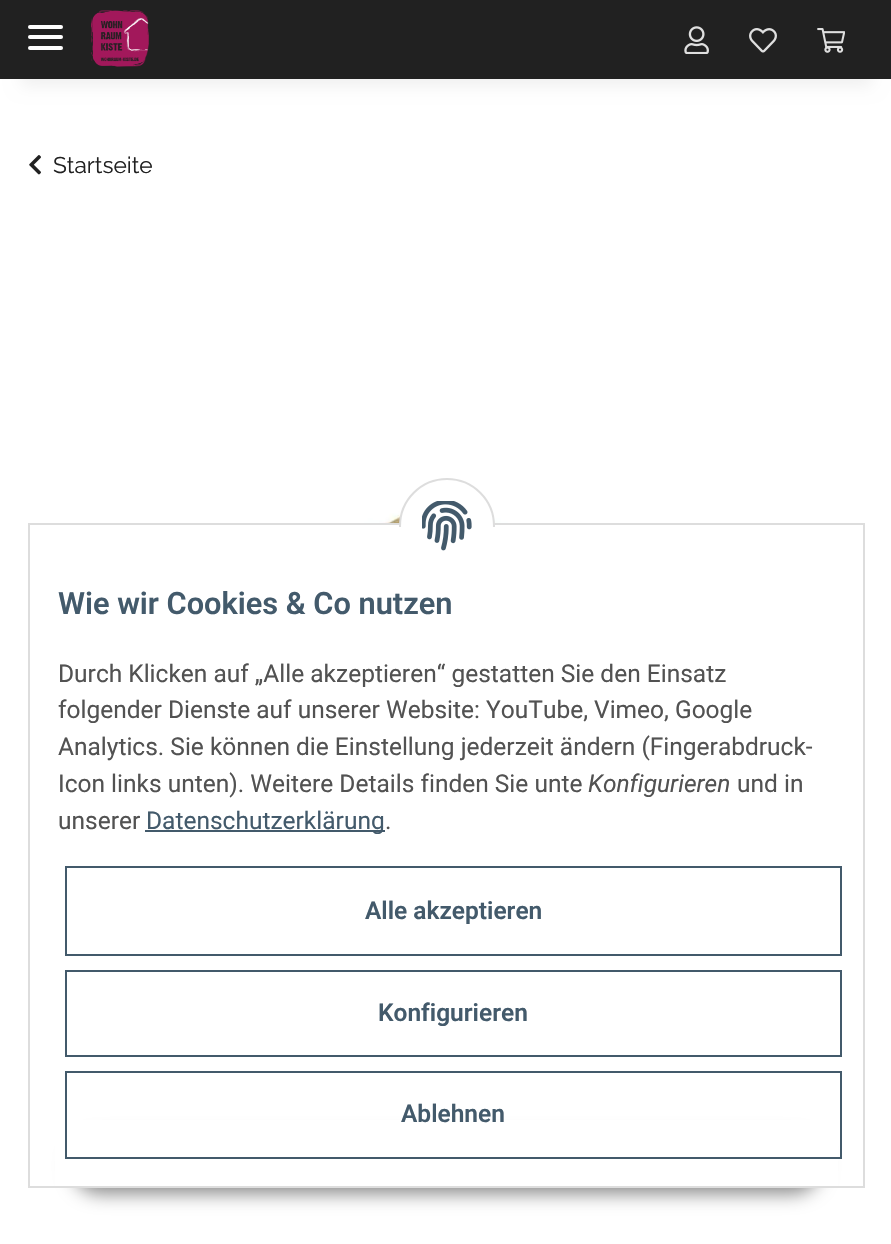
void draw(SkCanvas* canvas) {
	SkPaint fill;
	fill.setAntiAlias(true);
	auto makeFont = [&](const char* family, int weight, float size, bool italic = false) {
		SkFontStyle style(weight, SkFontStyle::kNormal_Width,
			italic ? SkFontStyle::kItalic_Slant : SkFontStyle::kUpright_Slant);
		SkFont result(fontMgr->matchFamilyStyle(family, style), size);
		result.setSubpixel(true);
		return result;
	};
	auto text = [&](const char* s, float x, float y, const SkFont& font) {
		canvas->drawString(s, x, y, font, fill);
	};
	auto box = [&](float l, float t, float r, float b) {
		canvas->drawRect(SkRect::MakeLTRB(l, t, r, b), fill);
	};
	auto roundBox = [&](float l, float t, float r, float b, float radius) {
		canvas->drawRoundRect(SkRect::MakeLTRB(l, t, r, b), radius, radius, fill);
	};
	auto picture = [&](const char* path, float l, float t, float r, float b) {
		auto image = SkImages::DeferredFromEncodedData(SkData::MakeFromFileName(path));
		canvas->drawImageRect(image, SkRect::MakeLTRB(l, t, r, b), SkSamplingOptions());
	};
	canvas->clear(0xFFFFFFFF);
	fill.setColor(0x0F000000);
	fill.setMaskFilter(SkMaskFilter::MakeBlur(kNormal_SkBlurStyle, 8));
	canvas->drawRect(SkRect::MakeLTRB(21, 49, 872, 86), fill);
	fill.setMaskFilter(nullptr);
	fill.setColor(0xFF212121);
	box(0, 0, 891, 79);
	fill.setColor(0xFFFFFFFF);
	roundBox(28, 35, 63, 39, 2);
	roundBox(28, 25, 63, 29, 2);
	roundBox(28, 46, 63, 50, 2);
	picture("image0.png", 91, 10, 149, 67);
	picture("image1.png", 684, 26, 709, 54);
	picture("image2.png", 749, 28, 777, 53);
	picture("image3.png", 817, 28, 845, 53);
	picture("image4.png", 29, 155, 41, 175);
	picture("image5.png", 193, 508, 670, 523);
	fill.setColor(0x73000000);
	fill.setMaskFilter(SkMaskFilter::MakeBlur(kNormal_SkBlurStyle, 9));
	canvas->drawRoundRect(SkRect::MakeLTRB(72, 1138, 821, 1194), 28, 28, fill);
	fill.setMaskFilter(nullptr);
	fill.setColor(0xFFFFFFFF);
	box(55, 1120, 838, 1186);
	fill.setStyle(SkPaint::kStroke_Style);
	fill.setStrokeWidth(2);
	fill.setColor(0xFFDDDDDD);
	canvas->drawRect(SkRect::MakeLTRB(29, 524, 864, 1187), fill);
	fill.setStyle(SkPaint::kFill_Style);
	fill.setColor(0xFFFFFFFF);
	canvas->drawCircle(447, 526, 47, fill);
	fill.setStyle(SkPaint::kStroke_Style);
	fill.setColor(0xFFDDDDDD);
	canvas->drawCircle(447, 526, 47, fill);
	fill.setStyle(SkPaint::kFill_Style);
	fill.setColor(0xFFFFFFFF);
	box(399, 527, 495, 574);
	picture("image6.png", 422, 501, 472, 551);
	fill.setColor(0xFF435A6B);
	box(145, 830, 385, 832);
	fill.setStyle(SkPaint::kStroke_Style);
	canvas->drawRect(SkRect::MakeLTRB(66, 867, 841, 955), fill);
	canvas->drawRect(SkRect::MakeLTRB(66, 971, 841, 1056), fill);
	canvas->drawRect(SkRect::MakeLTRB(66, 1072, 841, 1158), fill);
	auto font1 = makeFont("Raleway", 400, 22.75f);
	fill.setStyle(SkPaint::kFill_Style);
	fill.setColor(0xFF212121);
	text("Startseite", 53, 173, font1);
	auto font2 = makeFont("Roboto", 600, 30.75f);
	fill.setColor(0xFF435A6B);
	text("Wie wir Cookies & Co nutzen", 58, 614, font2);
	auto font3 = makeFont("Roboto", 400, 24.5f);
	fill.setColor(0xFF525252);
	text("Durch Klicken auf „Alle akzeptieren“ gestatten Sie den Einsatz", 58, 682, font3);
	text("folgender Dienste auf unserer Website: YouTube, Vimeo, Google", 58, 718, font3);
	text("Analytics. Sie können die Einstellung jederzeit ändern (Fingerabdruck-", 58, 755, font3);
	text("Icon links unten). Weitere Details finden Sie unte", 58, 792, font3);
	auto font4 = makeFont("Roboto", 400, 24.5f, true);
	text("Konfigurieren", 588, 792, font4);
	text("und in", 737, 792, font3);
	text("unserer", 58, 829, font3);
	fill.setColor(0xFF435A6B);
	text("Datenschutzerklärung", 146, 829, font3);
	fill.setColor(0xFF525252);
	text(".", 385, 829, font3);
	auto font5 = makeFont("Roboto", 600, 24.5f);
	fill.setColor(0xFF435A6B);
	text("Alle akzeptieren", 365, 919, font5);
	text("Konfigurieren", 378, 1021, font5);
	text("Ablehnen", 401, 1122, font5);
}
